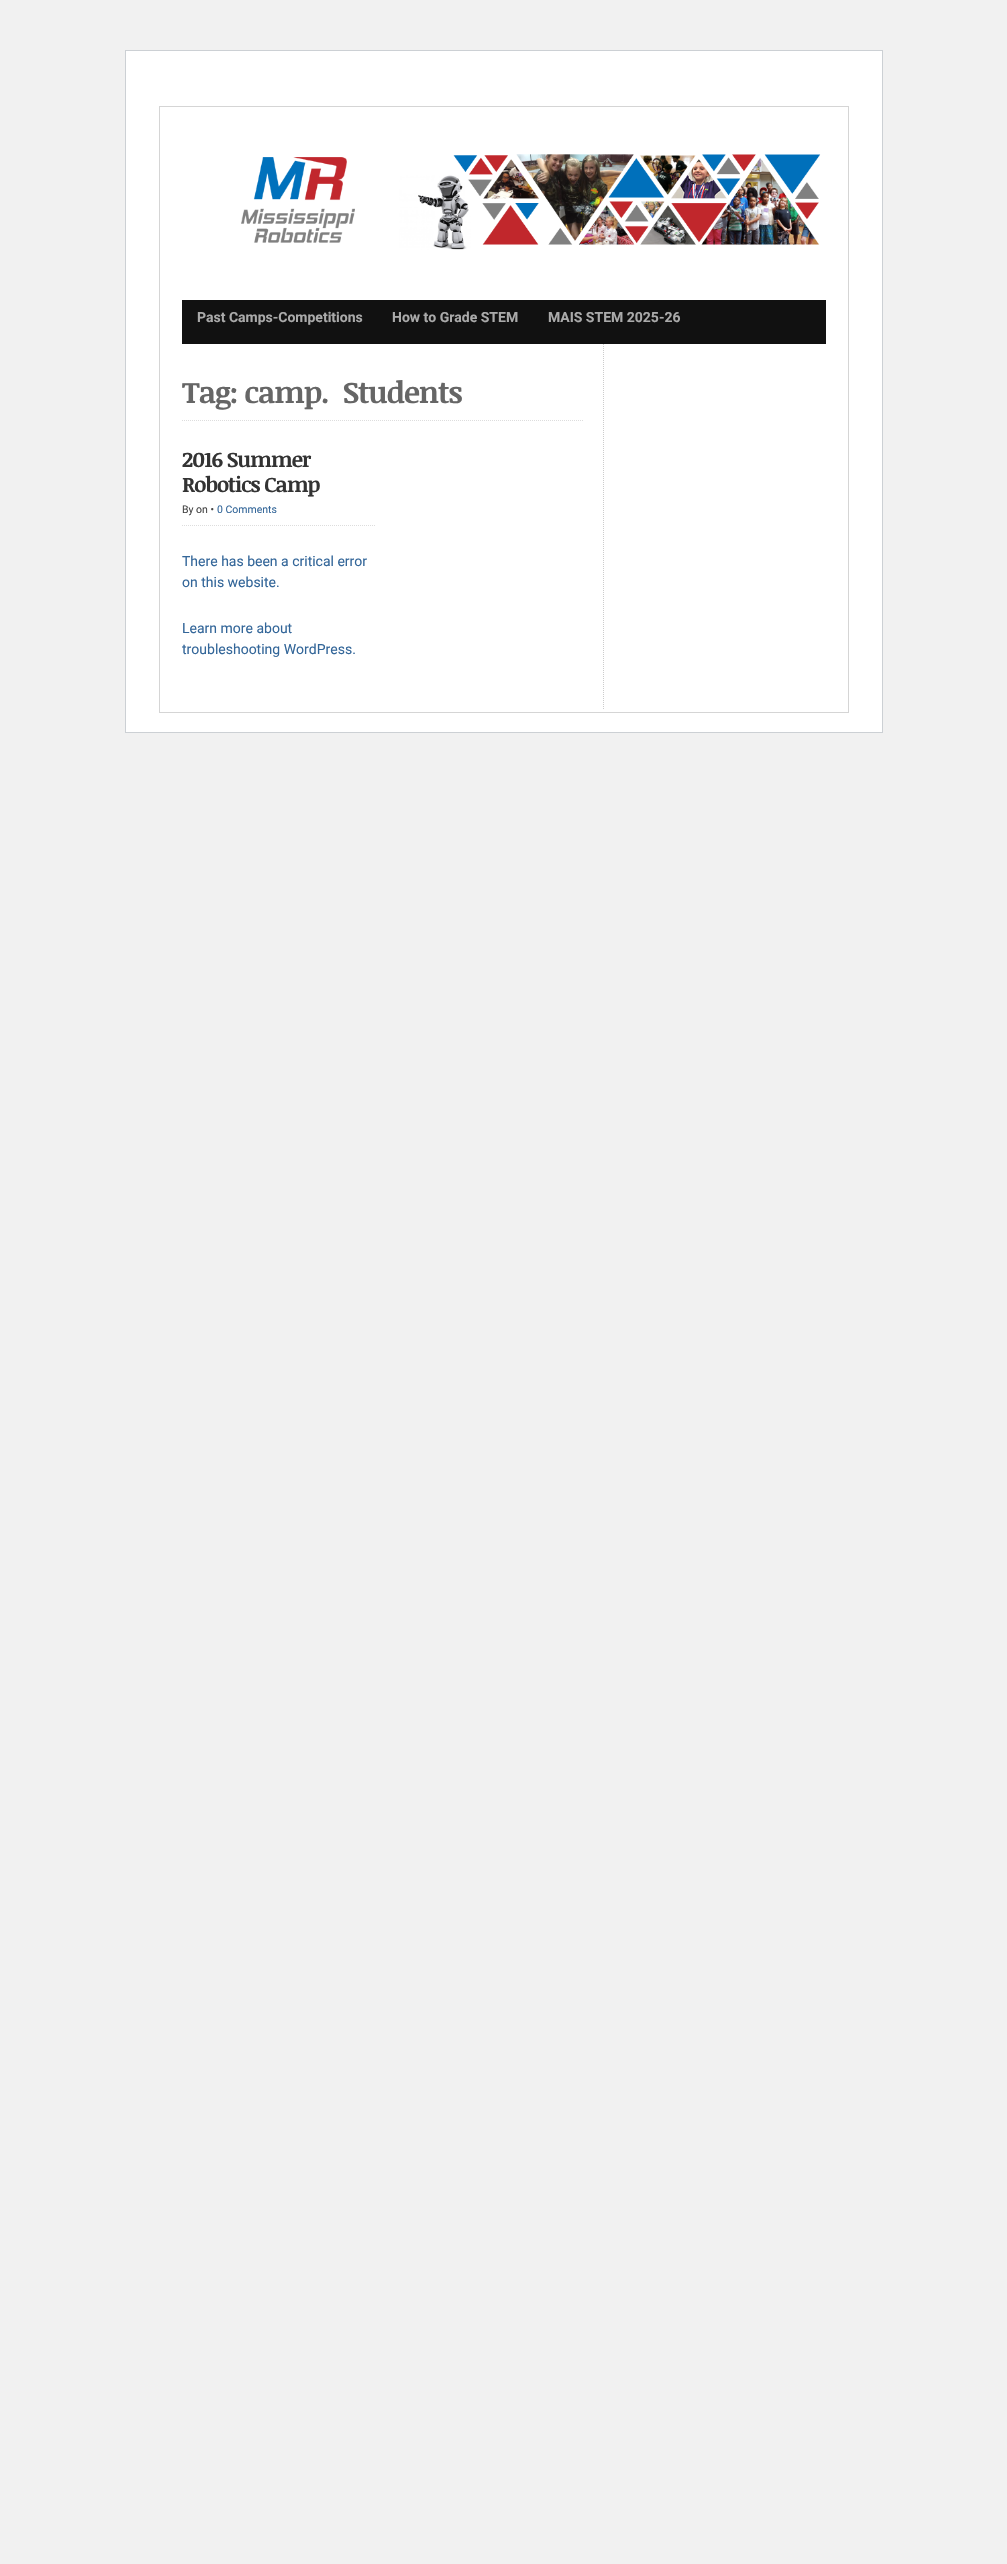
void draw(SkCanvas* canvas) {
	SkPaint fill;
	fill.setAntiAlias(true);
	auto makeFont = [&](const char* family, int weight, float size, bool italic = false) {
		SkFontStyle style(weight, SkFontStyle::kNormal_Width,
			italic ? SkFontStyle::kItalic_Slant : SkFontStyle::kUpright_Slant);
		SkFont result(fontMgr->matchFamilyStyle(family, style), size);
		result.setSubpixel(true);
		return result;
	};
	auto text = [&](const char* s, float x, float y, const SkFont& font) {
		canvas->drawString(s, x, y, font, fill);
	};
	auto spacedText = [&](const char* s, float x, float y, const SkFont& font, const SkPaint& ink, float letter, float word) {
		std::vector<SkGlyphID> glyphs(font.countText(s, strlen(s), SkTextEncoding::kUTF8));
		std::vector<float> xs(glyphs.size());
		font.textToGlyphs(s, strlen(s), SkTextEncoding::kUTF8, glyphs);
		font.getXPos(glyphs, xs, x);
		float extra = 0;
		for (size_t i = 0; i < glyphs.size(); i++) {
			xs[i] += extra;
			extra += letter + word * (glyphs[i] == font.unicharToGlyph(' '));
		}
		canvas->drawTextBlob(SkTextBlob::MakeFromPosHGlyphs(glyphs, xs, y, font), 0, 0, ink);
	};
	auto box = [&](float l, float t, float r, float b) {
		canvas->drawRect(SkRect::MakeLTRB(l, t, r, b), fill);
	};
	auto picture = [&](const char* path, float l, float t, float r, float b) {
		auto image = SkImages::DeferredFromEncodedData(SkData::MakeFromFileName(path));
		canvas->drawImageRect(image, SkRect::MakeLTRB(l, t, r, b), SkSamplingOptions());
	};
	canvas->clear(0xFFF1F1F1);
	fill.setColor(0xFFFFFFFF);
	canvas->drawRect(SkRect::MakeLTRB(125.5f, 50.5f, 882.5f, 732.5f), fill);
	fill.setStyle(SkPaint::kStroke_Style);
	fill.setStrokeWidth(1);
	fill.setColor(0xFFCCD0D4);
	canvas->drawRect(SkRect::MakeLTRB(125.5f, 50.5f, 882.5f, 732.5f), fill);
	fill.setColor(0xFFD5D5D5);
	canvas->drawRect(SkRect::MakeLTRB(159.5f, 106.5f, 848.5f, 712.5f), fill);
	picture("image0.png", 241, 154, 821, 250);
	fill.setStyle(SkPaint::kFill_Style);
	fill.setColor(0xFF111111);
	box(182, 300, 826, 344);
	picture("image1.png", 603, 344, 604, 709);
	fill.setStyle(SkPaint::kStroke_Style);
	fill.setColor(0xFFDDDDDD);
	fill.setPathEffect(SkDashPathEffect::Make({{1, 1}}, 0));
	canvas->drawPath(SkPathBuilder().moveTo(182, 420.5f).lineTo(584, 420.5f).detach(), fill);
	fill.setPathEffect(nullptr);
	fill.setPathEffect(SkDashPathEffect::Make({{1, 1}}, 0));
	canvas->drawPath(SkPathBuilder().moveTo(182, 525.5f).lineTo(375, 525.5f).detach(), fill);
	fill.setPathEffect(nullptr);
	auto font1 = makeFont("Roboto", 700, 14);
	fill.setStyle(SkPaint::kFill_Style);
	fill.setColor(0xFFAAAAAA);
	text("Past Camps-Competitions", 197, 322, font1);
	text("How to Grade STEM", 392, 322, font1);
	text("MAIS STEM 2025-26", 548, 322, font1);
	auto font2 = makeFont("Noticia Text", 700, 30);
	fill.setColor(0xFF666666);
	spacedText("Tag: camp.  Students", 182, 403, font2, fill, -1, 0);
	auto font3 = makeFont("Noticia Text", 700, 21.25f);
	fill.setColor(0xFF333333);
	spacedText("2016 Summer", 182, 467, font3, fill, -1, 0);
	spacedText("Robotics Camp", 182, 492, font3, fill, -1, 0);
	auto font4 = makeFont("Roboto", 400, 10.5f);
	fill.setColor(0xFF444444);
	text("By on •", 182, 513, font4);
	fill.setColor(0xFF336699);
	text("0 Comments", 217, 513, font4);
	auto font5 = makeFont("Roboto", 400, 14);
	text("There has been a critical error", 182, 566, font5);
	text("on this website.", 182, 587, font5);
	text("Learn more about", 182, 633, font5);
	text("troubleshooting WordPress.", 182, 654, font5);
}
